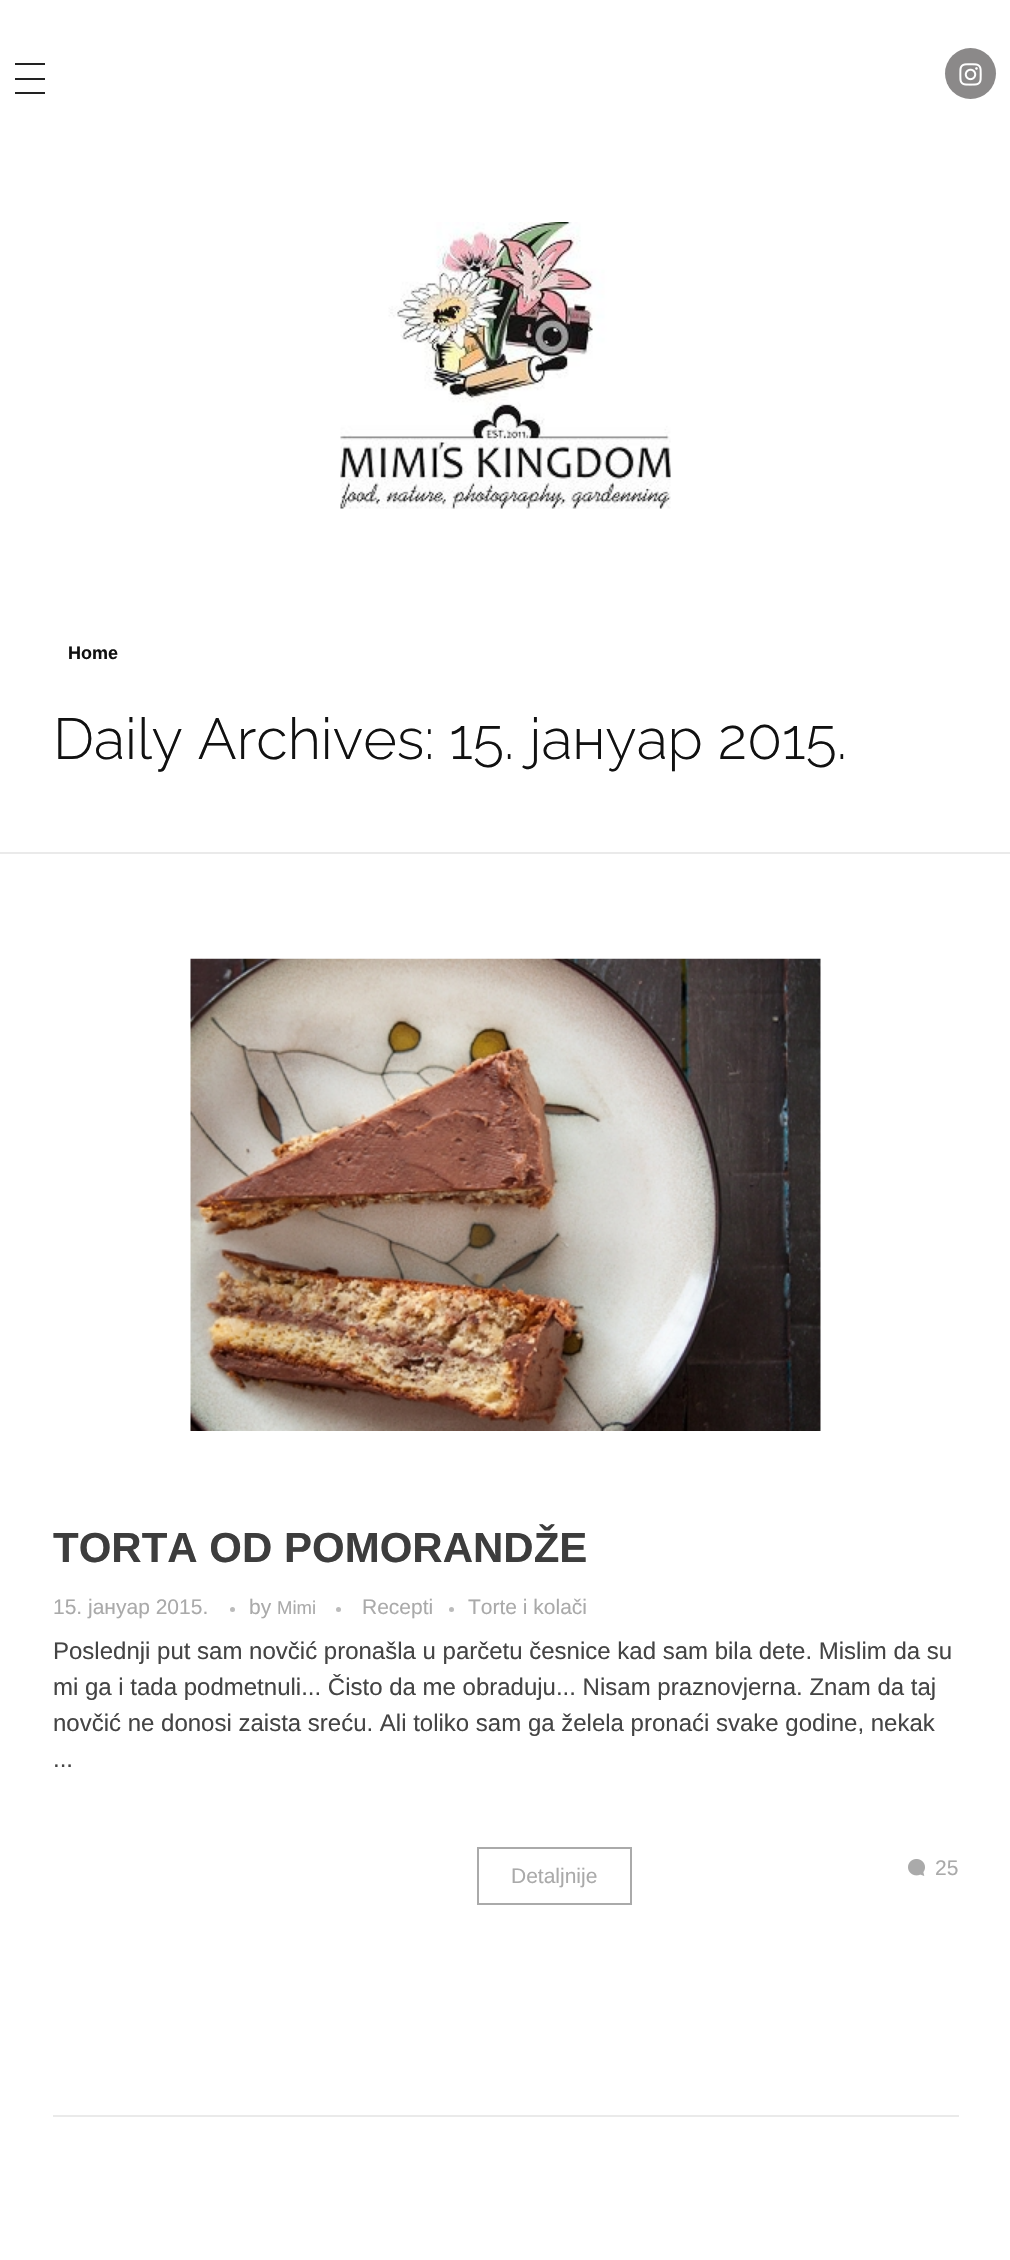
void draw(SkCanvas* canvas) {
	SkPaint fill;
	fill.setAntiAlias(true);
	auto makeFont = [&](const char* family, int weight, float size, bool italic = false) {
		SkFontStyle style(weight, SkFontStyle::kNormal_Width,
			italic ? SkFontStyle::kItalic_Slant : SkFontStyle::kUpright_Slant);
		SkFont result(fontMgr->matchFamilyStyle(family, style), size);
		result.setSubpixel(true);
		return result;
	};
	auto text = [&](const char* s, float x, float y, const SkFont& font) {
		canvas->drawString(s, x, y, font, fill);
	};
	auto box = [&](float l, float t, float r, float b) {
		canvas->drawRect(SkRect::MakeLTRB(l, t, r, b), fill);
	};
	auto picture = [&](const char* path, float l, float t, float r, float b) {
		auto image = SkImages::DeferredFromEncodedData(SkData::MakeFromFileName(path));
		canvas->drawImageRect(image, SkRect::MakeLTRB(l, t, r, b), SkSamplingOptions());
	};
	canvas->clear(0xFFFFFFFF);
	fill.setColor(0xFF222222);
	box(15, 63, 45, 65);
	box(15, 78, 45, 80);
	box(15, 92, 45, 94);
	fill.setColor(0xFF8B8989);
	canvas->drawCircle(970.5f, 73.5f, 25.5f, fill);
	picture("image0.png", 959, 63, 982, 86);
	picture("image1.png", 340, 222, 671, 509);
	fill.setColor(0xFFEAEAEA);
	box(0, 852, 1010, 854);
	picture("image2.png", 190, 958, 821, 1431);
	fill.setColor(0xFFBBBBBB);
	canvas->drawCircle(232.5f, 1609.5f, 2.5f, fill);
	canvas->drawCircle(338.5f, 1609.5f, 2.5f, fill);
	canvas->drawCircle(451.5f, 1609.5f, 2.5f, fill);
	fill.setStyle(SkPaint::kStroke_Style);
	fill.setStrokeWidth(2);
	fill.setColor(0xFFAAAAAA);
	canvas->drawRect(SkRect::MakeLTRB(478, 1848, 631, 1904), fill);
	picture("image3.png", 908, 1859, 925, 1876);
	fill.setStyle(SkPaint::kFill_Style);
	fill.setColor(0xFFEAEAEA);
	box(53, 2115, 959, 2117);
	auto font1 = makeFont("Liberation Sans", 700, 18);
	fill.setColor(0xFF111111);
	text("Home", 68, 659, font1);
	auto font2 = makeFont("Raleway", 300, 57.6f);
	text("Daily Archives: 15. јануар 2015.", 53, 759, font2);
	auto font3 = makeFont("Liberation Sans", 700, 42);
	fill.setColor(0xFF3D3D3D);
	text("TORTA OD POMORANDŽE", 53, 1562, font3);
	auto font4 = makeFont("Liberation Sans", 400, 21);
	fill.setColor(0xFFAAAAAA);
	text("15. јануар 2015.", 53, 1614, font4);
	text("by", 249, 1614, font4);
	auto font5 = makeFont("Liberation Sans", 400, 18.5f);
	text("Mimi", 277, 1614, font5);
	text("Recepti", 362, 1614, font4);
	text("Torte i kolači", 468, 1614, font4);
	auto font6 = makeFont("Liberation Sans", 400, 24);
	fill.setColor(0xFF444444);
	text("Poslednji put sam novčić pronašla u parčetu česnice kad sam bila dete. Mislim da su", 53, 1659, font6);
	text("mi ga i tada podmetnuli... Čisto da me obraduju... Nisam praznovjerna. Znam da taj", 53, 1695, font6);
	text("novčić ne donosi zaista sreću. Ali toliko sam ga želela pronaći svake godine, nekak", 53, 1731, font6);
	text("...", 53, 1767, font6);
	fill.setColor(0xFFAAAAAA);
	text("Detaljnije", 511, 1883, font4);
	text("25", 935, 1875, font4);
}
